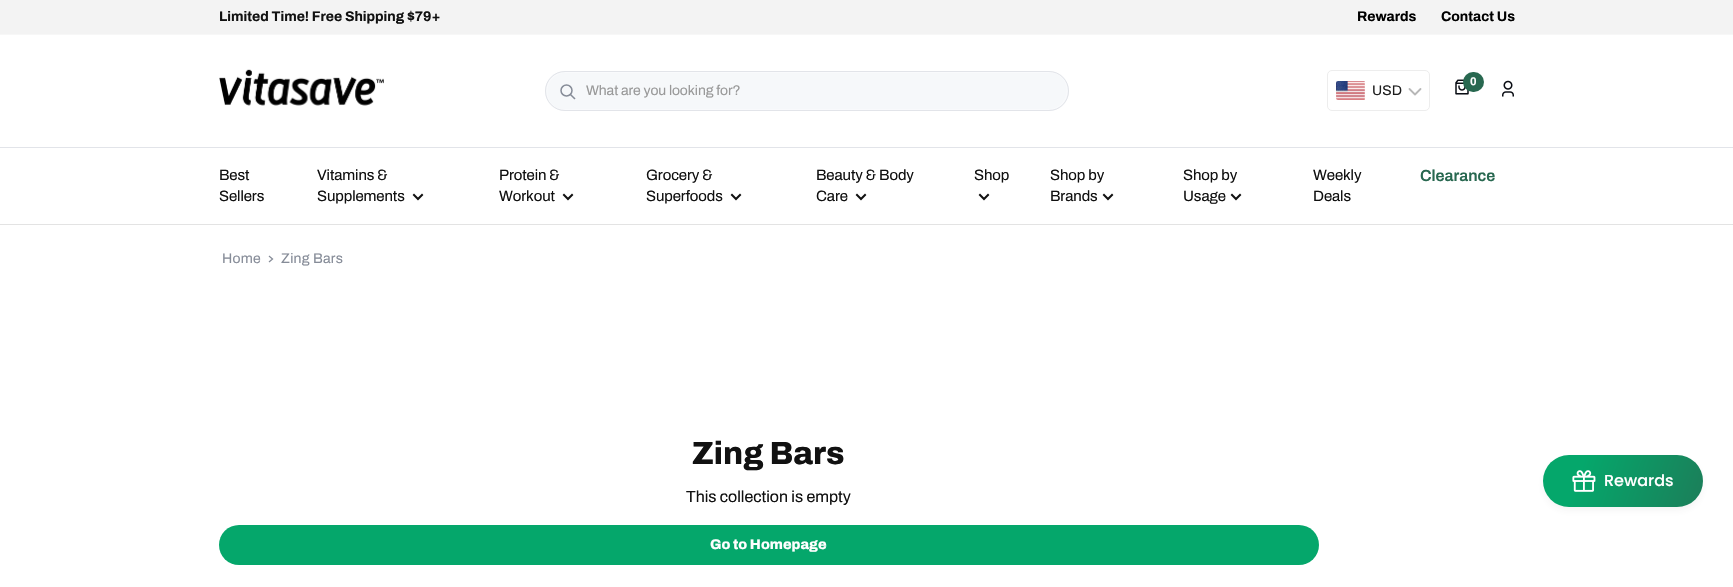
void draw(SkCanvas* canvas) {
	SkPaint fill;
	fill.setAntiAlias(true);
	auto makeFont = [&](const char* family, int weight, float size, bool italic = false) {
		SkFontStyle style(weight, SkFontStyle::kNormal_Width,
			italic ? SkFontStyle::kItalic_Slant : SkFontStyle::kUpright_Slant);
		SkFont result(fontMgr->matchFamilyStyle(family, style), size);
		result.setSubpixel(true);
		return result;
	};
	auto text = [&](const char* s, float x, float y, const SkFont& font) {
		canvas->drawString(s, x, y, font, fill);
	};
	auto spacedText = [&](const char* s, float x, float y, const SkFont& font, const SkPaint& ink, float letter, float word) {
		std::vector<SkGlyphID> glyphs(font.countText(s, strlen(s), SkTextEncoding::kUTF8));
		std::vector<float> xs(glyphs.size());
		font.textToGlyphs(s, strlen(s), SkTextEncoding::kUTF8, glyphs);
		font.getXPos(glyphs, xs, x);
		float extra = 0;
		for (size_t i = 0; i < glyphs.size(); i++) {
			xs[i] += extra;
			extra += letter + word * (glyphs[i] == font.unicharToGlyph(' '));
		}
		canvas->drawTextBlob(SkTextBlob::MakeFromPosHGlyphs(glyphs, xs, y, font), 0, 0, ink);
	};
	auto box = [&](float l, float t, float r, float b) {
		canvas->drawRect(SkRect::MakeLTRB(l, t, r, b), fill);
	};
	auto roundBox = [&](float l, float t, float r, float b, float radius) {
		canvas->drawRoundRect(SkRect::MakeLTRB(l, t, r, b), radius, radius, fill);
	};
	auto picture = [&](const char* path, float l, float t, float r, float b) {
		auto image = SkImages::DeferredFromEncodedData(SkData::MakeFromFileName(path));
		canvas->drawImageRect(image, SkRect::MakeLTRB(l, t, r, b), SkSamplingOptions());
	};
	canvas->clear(0xFFFFFFFF);
	fill.setColor(0xFFF3F3F3);
	box(0, 0, 1733, 34);
	fill.setColor(0xFFF7F7F7);
	box(0, 34, 1733, 35);
	fill.setColor(0xFFE2E4E9);
	box(0, 147, 1733, 148);
	picture("image0.png", 219, 69, 384, 106);
	fill.setColor(0xFFF6F8FA);
	roundBox(545, 71, 1069, 111, 20);
	fill.setColor(0xFFF9FAFC);
	canvas->drawPath(SkPathBuilder().moveTo(549, 101).cubicTo(552, 106, 557, 109, 563, 110).lineTo(1049, 110).cubicTo(1068, 110, 1075, 85, 1059, 75).cubicTo(1073, 86, 1066, 109, 1048, 109).lineTo(562, 109).cubicTo(557, 108, 552, 105, 549, 101).close().detach(), fill);
	canvas->drawPath(SkPathBuilder().moveTo(566, 73).lineTo(1050, 73).cubicTo(1056, 73, 1061, 76, 1065, 81).cubicTo(1062, 76, 1057, 73, 1051, 72).lineTo(565, 72).cubicTo(546, 72, 539, 97, 555, 107).cubicTo(541, 96, 548, 73, 566, 73).close().detach(), fill);
	fill.setStyle(SkPaint::kStroke_Style);
	fill.setStrokeWidth(1);
	fill.setColor(0xFFE2E4E9);
	canvas->drawRoundRect(SkRect::MakeLTRB(545.5f, 71.5f, 1068.5f, 110.5f), 19.5f, 19.5f, fill);
	fill.setStrokeWidth(1.5f);
	fill.setStrokeCap(SkPaint::kSquare_Cap);
	fill.setColor(0xFF868C98);
	canvas->drawPath(SkPathBuilder().moveTo(574.5f, 98.5f).lineTo(570.5f, 94.5f).detach(), fill);
	fill.setStrokeCap(SkPaint::kButt_Cap);
	canvas->drawCircle(566.5f, 90.5f, 5.5f, fill);
	fill.setStrokeWidth(1);
	fill.setColor(0xFFEDEDED);
	canvas->drawRoundRect(SkRect::MakeLTRB(1327.5f, 70.5f, 1429.5f, 110.5f), 4.5f, 4.5f, fill);
	picture("image1.png", 1336, 81, 1365, 100);
	fill.setStrokeWidth(1.8f);
	fill.setStrokeCap(SkPaint::kRound_Cap);
	fill.setStrokeJoin(SkPaint::kRound_Join);
	fill.setColor(0xFFB7B7B7);
	canvas->drawPath(SkPathBuilder().moveTo(1409.5f, 89).lineTo(1415, 94.5f).lineTo(1420.5f, 89).detach(), fill);
	picture("image2.png", 1455, 79, 1469, 95);
	fill.setStyle(SkPaint::kFill_Style);
	fill.setColor(0xFF286850);
	roundBox(1463, 72, 1484, 92, 10);
	picture("image3.png", 1502, 80, 1514, 97);
	fill.setColor(0xFFE3E3E3);
	box(0, 224, 1733, 225);
	fill.setStyle(SkPaint::kStroke_Style);
	fill.setStrokeWidth(2);
	fill.setStrokeCap(SkPaint::kSquare_Cap);
	fill.setStrokeJoin(SkPaint::kMiter_Join);
	fill.setColor(0xFF111111);
	canvas->drawPath(SkPathBuilder().moveTo(422, 195).lineTo(418, 199).lineTo(414, 195).detach(), fill);
	canvas->drawPath(SkPathBuilder().moveTo(572, 195).lineTo(568, 199).lineTo(564, 195).detach(), fill);
	canvas->drawPath(SkPathBuilder().moveTo(740, 195).lineTo(736, 199).lineTo(732, 195).detach(), fill);
	canvas->drawPath(SkPathBuilder().moveTo(865, 195).lineTo(861, 199).lineTo(857, 195).detach(), fill);
	canvas->drawPath(SkPathBuilder().moveTo(988, 195).lineTo(984, 199).lineTo(980, 195).detach(), fill);
	canvas->drawPath(SkPathBuilder().moveTo(1112, 195).lineTo(1108, 199).lineTo(1104, 195).detach(), fill);
	canvas->drawPath(SkPathBuilder().moveTo(1240, 195).lineTo(1236, 199).lineTo(1232, 195).detach(), fill);
	fill.setStrokeWidth(1.3f);
	fill.setColor(0xFF868C98);
	canvas->drawPath(SkPathBuilder().moveTo(269.5f, 256.5f).lineTo(272.5f, 259).lineTo(269.5f, 261.5f).detach(), fill);
	fill.setStyle(SkPaint::kFill_Style);
	fill.setColor(0xFF05A76B);
	roundBox(219, 525, 1319, 565, 20);
	fill.setColor(0x14444444);
	fill.setMaskFilter(SkMaskFilter::MakeBlur(kNormal_SkBlurStyle, 4));
	canvas->drawRoundRect(SkRect::MakeLTRB(1545, 461, 1701, 509), 24, 24, fill);
	fill.setMaskFilter(nullptr);
	{
		const SkColor colors[] = {0xFF05A76B, 0xFF286850};
		const float stops[] = {0.17f, 1};
		const SkPoint ends[] = {{1544, 453}, {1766, 532}};
		fill.setShader(SkGradientShader::MakeLinear(ends, colors, stops, 2, SkTileMode::kClamp));
		fill.setAlpha(255);
	}
	roundBox(1543, 455, 1703, 507, 26);
	picture("image4.png", 1572, 470, 1596, 492);
	auto font1 = makeFont("Archivo", 700, 14);
	fill.setShader(nullptr);
	fill.setColor(0xFF111111);
	text("Limited Time! Free Shipping $79+", 219, 21, font1);
	fill.setColor(0xFF000000);
	text("Rewards", 1357, 21, font1);
	text("Contact Us", 1441, 21, font1);
	auto font2 = makeFont("Archivo", 400, 14);
	fill.setColor(0xFF999999);
	spacedText("What are you looking for?", 586, 95, font2, fill, -0.1f, 0);
	fill.setColor(0xFF1E1E1E);
	text("USD", 1372, 95, font2);
	auto font3 = makeFont("Archivo", 700, 11);
	fill.setColor(0xFFFFFFFF);
	text("0", 1470, 85, font3);
	auto font4 = makeFont("Archivo", 400, 15);
	fill.setColor(0xFF111111);
	spacedText("Best", 219, 180, font4, fill, -0.1f, 0);
	spacedText("Sellers", 219, 201, font4, fill, -0.1f, 0);
	spacedText("Vitamins &", 317, 180, font4, fill, -0.1f, 0);
	spacedText("Supplements", 317, 201, font4, fill, -0.1f, 0);
	spacedText("Protein &", 499, 180, font4, fill, -0.1f, 0);
	spacedText("Workout", 499, 201, font4, fill, -0.1f, 0);
	spacedText("Grocery &", 646, 180, font4, fill, -0.1f, 0);
	spacedText("Superfoods", 646, 201, font4, fill, -0.1f, 0);
	spacedText("Beauty & Body", 816, 180, font4, fill, -0.1f, 0);
	spacedText("Care", 816, 201, font4, fill, -0.1f, 0);
	spacedText("Shop", 974, 180, font4, fill, -0.1f, 0);
	spacedText("Shop by", 1050, 180, font4, fill, -0.1f, 0);
	spacedText("Brands", 1050, 201, font4, fill, -0.1f, 0);
	spacedText("Shop by", 1183, 180, font4, fill, -0.1f, 0);
	spacedText("Usage", 1183, 201, font4, fill, -0.1f, 0);
	spacedText("Weekly", 1313, 180, font4, fill, -0.1f, 0);
	spacedText("Deals", 1313, 201, font4, fill, -0.1f, 0);
	auto font5 = makeFont("Archivo", 600, 16);
	fill.setColor(0xFF286850);
	text("Clearance", 1420, 181, font5);
	fill.setColor(0xFF868C98);
	spacedText("Home", 222, 263, font2, fill, 0.25f, 0);
	spacedText("Zing Bars", 281, 263, font2, fill, 0.25f, 0);
	auto font6 = makeFont("Archivo", 800, 32);
	fill.setColor(0xFF111111);
	text("Zing Bars", 692, 464, font6);
	auto font7 = makeFont("Archivo", 400, 16);
	text("This collection is empty", 686, 502, font7);
	auto font8 = makeFont("Archivo", 800, 14);
	fill.setColor(0xFFFFFFFF);
	text("Go to Homepage", 710, 549, font8);
	auto font9 = makeFont("Poppins", 500, 16);
	text("Rewards", 1604, 486, font9);
}
